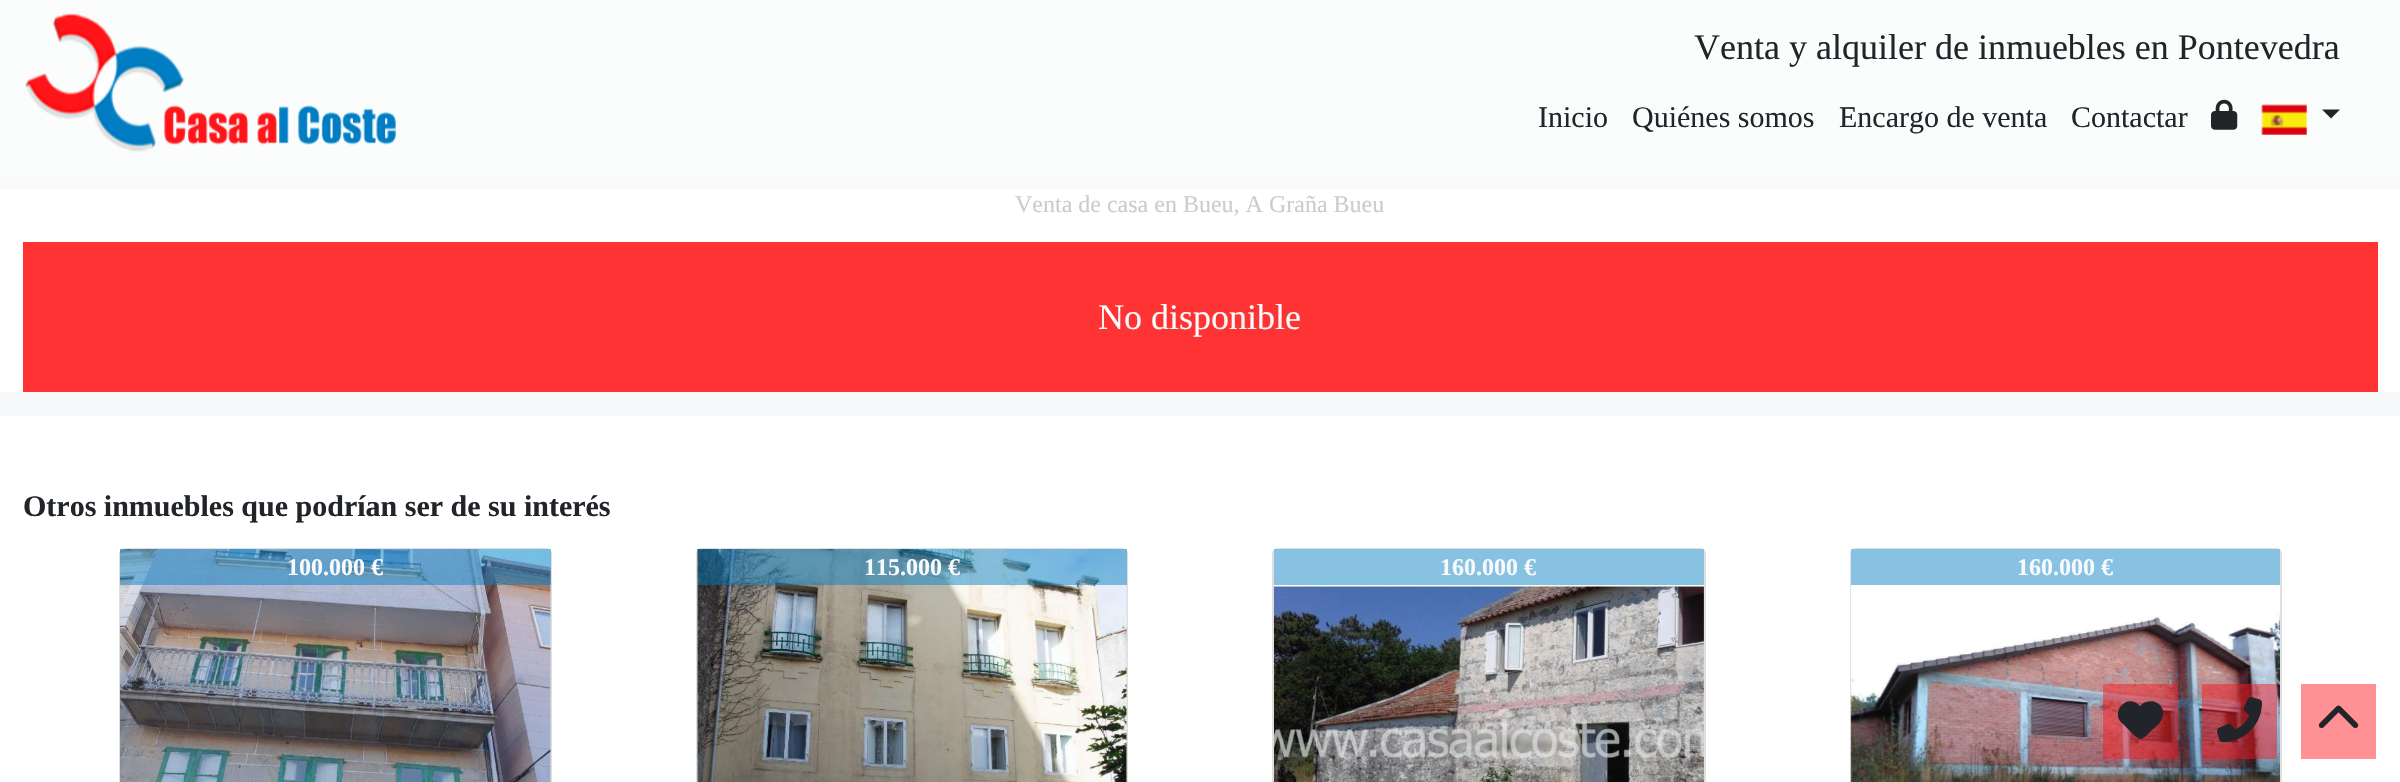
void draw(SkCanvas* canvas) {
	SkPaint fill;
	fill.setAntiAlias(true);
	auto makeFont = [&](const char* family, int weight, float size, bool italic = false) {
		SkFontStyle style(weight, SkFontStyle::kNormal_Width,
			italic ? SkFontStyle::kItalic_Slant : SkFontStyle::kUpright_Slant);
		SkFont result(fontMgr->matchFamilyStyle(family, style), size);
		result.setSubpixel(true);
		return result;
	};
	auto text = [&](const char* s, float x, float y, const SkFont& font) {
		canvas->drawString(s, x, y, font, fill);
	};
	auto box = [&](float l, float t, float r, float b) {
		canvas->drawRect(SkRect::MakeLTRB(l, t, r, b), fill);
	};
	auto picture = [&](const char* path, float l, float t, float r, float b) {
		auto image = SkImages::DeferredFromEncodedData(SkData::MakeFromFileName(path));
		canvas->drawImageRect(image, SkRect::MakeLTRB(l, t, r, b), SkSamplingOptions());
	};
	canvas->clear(0xFFFFFFFF);
	fill.setColor(0xFFFBFCFC);
	box(0, 0, 2400, 177);
	picture("image0.png", 25, 13, 396, 152);
	picture("image1.png", 2211, 99, 2238, 130);
	picture("image2.png", 2261, 104, 2307, 135);
	fill.setColor(0xFF212529);
	canvas->drawPath(SkPathBuilder().moveTo(2322, 109.5f).lineTo(2340, 109.5f).lineTo(2331, 118.5f).close().detach(), fill);
	fill.setColor(0xFFF8F9FA);
	box(0, 177, 2400, 416);
	fill.setColor(0xFFFFFFFF);
	box(0, 189, 2400, 392);
	fill.setColor(0xFFFF3333);
	box(23, 242, 2378, 392);
	fill.setStyle(SkPaint::kStroke_Style);
	fill.setStrokeWidth(2);
	fill.setColor(0xFFDFDFDF);
	canvas->drawRoundRect(SkRect::MakeLTRB(120, 549, 551, 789), 5, 5, fill);
	picture("image3.png", 120, 549, 551, 782);
	fill.setStyle(SkPaint::kFill_Style);
	fill.setColor(0x78007DC3);
	box(120, 549, 551, 585);
	fill.setStyle(SkPaint::kStroke_Style);
	fill.setColor(0xFFDFDFDF);
	canvas->drawRoundRect(SkRect::MakeLTRB(697, 549, 1127, 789), 5, 5, fill);
	picture("image4.png", 697, 549, 1127, 782);
	fill.setStyle(SkPaint::kFill_Style);
	fill.setColor(0x78007DC3);
	box(698, 549, 1127, 585);
	fill.setStyle(SkPaint::kStroke_Style);
	fill.setColor(0xFFDFDFDF);
	canvas->drawRoundRect(SkRect::MakeLTRB(1273, 549, 1705, 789), 5, 5, fill);
	picture("image5.png", 1274, 549, 1704, 782);
	fill.setStyle(SkPaint::kFill_Style);
	fill.setColor(0x78007DC3);
	box(1274, 549, 1704, 585);
	fill.setStyle(SkPaint::kStroke_Style);
	fill.setColor(0xFFDFDFDF);
	canvas->drawRoundRect(SkRect::MakeLTRB(1851, 549, 2281, 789), 5, 5, fill);
	picture("image6.png", 1850, 549, 2280, 782);
	fill.setStyle(SkPaint::kFill_Style);
	fill.setColor(0x78007DC3);
	box(1851, 549, 2280, 585);
	fill.setColor(0x78FF1419);
	box(2103, 684, 2178, 759);
	fill.setColor(0xFF212529);
	canvas->drawPath(SkPathBuilder().moveTo(2122, 723).lineTo(2138, 738).lineTo(2122, 723).lineTo(2135, 736).cubicTo(2140, 740, 2141, 740, 2146, 736).lineTo(2151, 731).cubicTo(2155, 727, 2160, 724, 2162, 719).cubicTo(2168, 705, 2151, 695, 2140, 706).cubicTo(2127, 692, 2110, 712, 2122, 723).close().detach(), fill);
	fill.setColor(0x78FF1419);
	box(2202, 684, 2277, 759);
	picture("image7.png", 2217, 697, 2262, 743);
	fill.setColor(0xFFFF9194);
	box(2301, 684, 2376, 759);
	picture("image8.png", 2318, 705, 2359, 728);
	auto font1 = makeFont("Liberation Serif", 400, 36);
	fill.setColor(0xFF212529);
	text("Venta y alquiler de inmuebles en Pontevedra", 1694, 59, font1);
	auto font2 = makeFont("Liberation Serif", 400, 30);
	text("Inicio", 1538, 127, font2);
	text("Quiénes somos", 1632, 127, font2);
	text("Encargo de venta", 1839, 127, font2);
	text("Contactar", 2071, 127, font2);
	auto font3 = makeFont("Liberation Serif", 400, 24);
	fill.setColor(0xFFCCCCCC);
	text("Venta de casa en Bueu, A Graña Bueu", 1015, 212, font3);
	fill.setColor(0xFFF8F9FA);
	text("No disponible", 1098, 329, font1);
	auto font4 = makeFont("Liberation Serif", 700, 30);
	fill.setColor(0xFF212529);
	text("Otros inmuebles que podrían ser de su interés", 23, 516, font4);
	auto font5 = makeFont("Liberation Serif", 700, 24);
	fill.setColor(0xFFF8F9FA);
	text("100.000 €", 287, 575, font5);
	text("115.000 €", 864, 575, font5);
	text("160.000 €", 1440, 575, font5);
	text("160.000 €", 2017, 575, font5);
}
